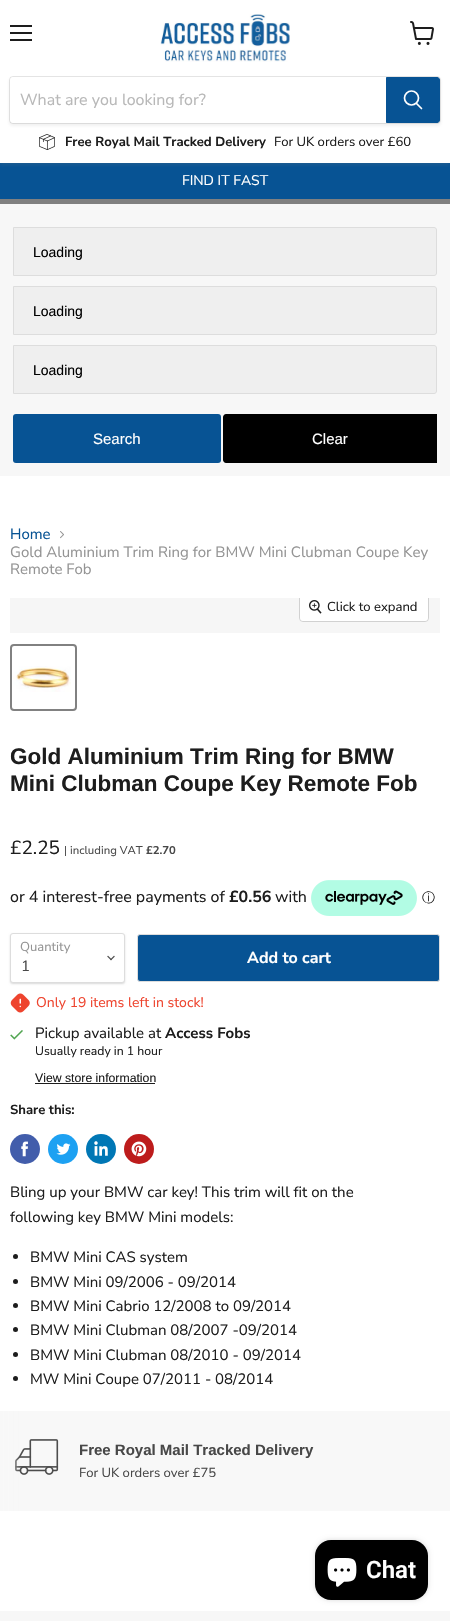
void draw(SkCanvas* canvas) {
	SkPaint fill;
	fill.setAntiAlias(true);
	auto makeFont = [&](const char* family, int weight, float size, bool italic = false) {
		SkFontStyle style(weight, SkFontStyle::kNormal_Width,
			italic ? SkFontStyle::kItalic_Slant : SkFontStyle::kUpright_Slant);
		SkFont result(fontMgr->matchFamilyStyle(family, style), size);
		result.setSubpixel(true);
		return result;
	};
	auto text = [&](const char* s, float x, float y, const SkFont& font) {
		canvas->drawString(s, x, y, font, fill);
	};
	auto box = [&](float l, float t, float r, float b) {
		canvas->drawRect(SkRect::MakeLTRB(l, t, r, b), fill);
	};
	auto roundBox = [&](float l, float t, float r, float b, float radius) {
		canvas->drawRoundRect(SkRect::MakeLTRB(l, t, r, b), radius, radius, fill);
	};
	auto picture = [&](const char* path, float l, float t, float r, float b) {
		auto image = SkImages::DeferredFromEncodedData(SkData::MakeFromFileName(path));
		canvas->drawImageRect(image, SkRect::MakeLTRB(l, t, r, b), SkSamplingOptions());
	};
	canvas->clear(0xFFFFFFFF);
	fill.setColor(0xFF075394);
	box(0, 163, 450, 199);
	canvas->save();
	canvas->clipRect(SkRect::MakeLTRB(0, 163, 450, 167));
	fill.setColor(0x40808080);
	fill.setMaskFilter(SkMaskFilter::MakeBlur(kNormal_SkBlurStyle, 2));
	canvas->drawRect(SkRect::MakeLTRB(0, 1, 450, 164), fill);
	fill.setMaskFilter(nullptr);
	canvas->restore();
	fill.setColor(0xFF1D1D1D);
	box(10, 25, 32, 27);
	box(10, 32, 32, 34);
	box(10, 39, 32, 41);
	picture("image0.png", 410, 21, 434, 45);
	picture("image1.png", 160, 14, 290, 62);
	fill.setColor(0x1C808080);
	fill.setMaskFilter(SkMaskFilter::MakeBlur(kNormal_SkBlurStyle, 1.5f));
	canvas->drawRoundRect(SkRect::MakeLTRB(9, 78, 441, 126), 4, 4, fill);
	fill.setMaskFilter(nullptr);
	fill.setStyle(SkPaint::kStroke_Style);
	fill.setStrokeWidth(1);
	fill.setColor(0x33808080);
	canvas->drawRoundRect(SkRect::MakeLTRB(9.5f, 76.5f, 440.5f, 123.5f), 3.5f, 3.5f, fill);
	fill.setStyle(SkPaint::kFill_Style);
	fill.setColor(0xFFFFFFFF);
	canvas->drawPath(SkPathBuilder().moveTo(13, 77).lineTo(386, 77).lineTo(386, 123).lineTo(13, 123).cubicTo(11.5f, 123, 10, 121.5f, 10, 120).lineTo(10, 80).cubicTo(10, 78.5f, 11.5f, 77, 13, 77).close().detach(), fill);
	fill.setColor(0xFF075394);
	canvas->drawPath(SkPathBuilder().moveTo(386.5f, 77.5f).lineTo(437, 77.5f).cubicTo(438.5f, 77.5f, 439.5f, 78.5f, 439.5f, 80).lineTo(439.5f, 120).cubicTo(439.5f, 121.5f, 438.5f, 122.5f, 437, 122.5f).lineTo(386.5f, 122.5f).close().detach(), fill);
	fill.setStyle(SkPaint::kStroke_Style);
	canvas->drawPath(SkPathBuilder().moveTo(386.5f, 77.5f).lineTo(437, 77.5f).cubicTo(438.5f, 77.5f, 439.5f, 78.5f, 439.5f, 80).lineTo(439.5f, 120).cubicTo(439.5f, 121.5f, 438.5f, 122.5f, 437, 122.5f).lineTo(386.5f, 122.5f).close().detach(), fill);
	fill.setStrokeWidth(1.7f);
	fill.setStrokeCap(SkPaint::kRound_Cap);
	fill.setColor(0xFFFFFFFF);
	canvas->drawPath(SkPathBuilder().moveTo(421.5f, 108.5f).lineTo(416.5f, 103.5f).detach(), fill);
	fill.setStrokeCap(SkPaint::kButt_Cap);
	canvas->drawCircle(411.5f, 98, 7, fill);
	picture("image2.png", 39, 134, 55, 150);
	fill.setStyle(SkPaint::kFill_Style);
	fill.setColor(0xFF808080);
	box(0, 199, 450, 204);
	fill.setColor(0xFFF7F7F7);
	box(0, 204, 450, 476);
	fill.setColor(0xFFEFEFEF);
	canvas->drawPath(SkPathBuilder().moveTo(13.5f, 227.5f).lineTo(434, 227.5f).cubicTo(435.5f, 227.5f, 436.5f, 228.5f, 436.5f, 230).lineTo(436.5f, 273).cubicTo(436.5f, 274.5f, 435.5f, 275.5f, 434, 275.5f).lineTo(13.5f, 275.5f).close().detach(), fill);
	fill.setStyle(SkPaint::kStroke_Style);
	fill.setStrokeWidth(1);
	fill.setColor(0xFFDDDDDD);
	canvas->drawPath(SkPathBuilder().moveTo(13.5f, 227.5f).lineTo(434, 227.5f).cubicTo(435.5f, 227.5f, 436.5f, 228.5f, 436.5f, 230).lineTo(436.5f, 273).cubicTo(436.5f, 274.5f, 435.5f, 275.5f, 434, 275.5f).lineTo(13.5f, 275.5f).close().detach(), fill);
	fill.setStyle(SkPaint::kFill_Style);
	fill.setColor(0xFFEFEFEF);
	canvas->drawPath(SkPathBuilder().moveTo(13.5f, 286.5f).lineTo(434, 286.5f).cubicTo(435.5f, 286.5f, 436.5f, 287.5f, 436.5f, 289).lineTo(436.5f, 332).cubicTo(436.5f, 333.5f, 435.5f, 334.5f, 434, 334.5f).lineTo(13.5f, 334.5f).close().detach(), fill);
	fill.setStyle(SkPaint::kStroke_Style);
	fill.setColor(0xFFDDDDDD);
	canvas->drawPath(SkPathBuilder().moveTo(13.5f, 286.5f).lineTo(434, 286.5f).cubicTo(435.5f, 286.5f, 436.5f, 287.5f, 436.5f, 289).lineTo(436.5f, 332).cubicTo(436.5f, 333.5f, 435.5f, 334.5f, 434, 334.5f).lineTo(13.5f, 334.5f).close().detach(), fill);
	fill.setStyle(SkPaint::kFill_Style);
	fill.setColor(0xFFEFEFEF);
	canvas->drawPath(SkPathBuilder().moveTo(13.5f, 345.5f).lineTo(434, 345.5f).cubicTo(435.5f, 345.5f, 436.5f, 346.5f, 436.5f, 348).lineTo(436.5f, 391).cubicTo(436.5f, 392.5f, 435.5f, 393.5f, 434, 393.5f).lineTo(13.5f, 393.5f).close().detach(), fill);
	fill.setStyle(SkPaint::kStroke_Style);
	fill.setColor(0xFFDDDDDD);
	canvas->drawPath(SkPathBuilder().moveTo(13.5f, 345.5f).lineTo(434, 345.5f).cubicTo(435.5f, 345.5f, 436.5f, 346.5f, 436.5f, 348).lineTo(436.5f, 391).cubicTo(436.5f, 392.5f, 435.5f, 393.5f, 434, 393.5f).lineTo(13.5f, 393.5f).close().detach(), fill);
	fill.setStyle(SkPaint::kFill_Style);
	fill.setColor(0xFF075394);
	roundBox(13, 414, 221, 463, 3);
	fill.setColor(0xFF000000);
	canvas->drawPath(SkPathBuilder().moveTo(226, 414).lineTo(437, 414).lineTo(437, 463).lineTo(226, 463).cubicTo(224.5f, 463, 223, 461.5f, 223, 460).lineTo(223, 417).cubicTo(223, 415.5f, 224.5f, 414, 226, 414).close().detach(), fill);
	picture("image3.png", 60, 531, 64, 539);
	fill.setColor(0xFFF6F6F6);
	box(10, 598, 440, 633);
	canvas->save();
	canvas->clipRect(SkRect::MakeLTRB(10, 598, 440, 633));
	fill.setStyle(SkPaint::kStroke_Style);
	fill.setColor(0xFFD1D1D1);
	canvas->drawRoundRect(SkRect::MakeLTRB(299.5f, 593.5f, 428.5f, 621.5f), 3.5f, 3.5f, fill);
	canvas->restore();
	fill.setStyle(SkPaint::kFill_Style);
	fill.setColor(0xE6FFFFFF);
	canvas->drawPath(SkPathBuilder().moveTo(300, 598).lineTo(428, 598).lineTo(428, 618).cubicTo(428, 619.5f, 426.5f, 621, 425, 621).lineTo(303, 621).cubicTo(301.5f, 621, 300, 619.5f, 300, 618).close().detach(), fill);
	picture("image4.png", 309, 600, 322, 614);
	fill.setStyle(SkPaint::kStroke_Style);
	fill.setStrokeWidth(2);
	fill.setColor(0xFF818181);
	canvas->drawRoundRect(SkRect::MakeLTRB(11, 645, 76, 710), 3, 3, fill);
	picture("image5.png", 13, 666, 71, 692);
	picture("image6.png", 311, 880, 417, 916);
	fill.setStyle(SkPaint::kFill_Style);
	fill.setColor(0x26000000);
	fill.setMaskFilter(SkMaskFilter::MakeBlur(kNormal_SkBlurStyle, 1));
	canvas->drawRoundRect(SkRect::MakeLTRB(10, 934, 125, 984), 3, 3, fill);
	fill.setMaskFilter(nullptr);
	fill.setColor(0xFFFFFFFF);
	canvas->drawRoundRect(SkRect::MakeLTRB(10.5f, 933.5f, 124.5f, 982.5f), 2.5f, 2.5f, fill);
	fill.setStyle(SkPaint::kStroke_Style);
	fill.setStrokeWidth(1);
	fill.setColor(0xFFDDDDDD);
	canvas->drawRoundRect(SkRect::MakeLTRB(10.5f, 933.5f, 124.5f, 982.5f), 2.5f, 2.5f, fill);
	picture("image7.png", 107, 955, 115, 961);
	fill.setStyle(SkPaint::kFill_Style);
	fill.setColor(0xFF075394);
	canvas->drawRoundRect(SkRect::MakeLTRB(137.5f, 934.5f, 439.5f, 981.5f), 2.5f, 2.5f, fill);
	fill.setStyle(SkPaint::kStroke_Style);
	fill.setColor(0xFFDDDDDD);
	canvas->drawRoundRect(SkRect::MakeLTRB(137.5f, 934.5f, 439.5f, 981.5f), 2.5f, 2.5f, fill);
	picture("image8.png", 10, 993, 30, 1013);
	picture("image9.png", 10, 1030, 23, 1040);
	fill.setStyle(SkPaint::kFill_Style);
	fill.setColor(0xFF1D1D1D);
	box(35, 1083, 155, 1084);
	fill.setColor(0xFF425DAB);
	canvas->drawCircle(25, 1149, 15, fill);
	picture("image10.png", 21, 1141, 28, 1157);
	fill.setColor(0xFF1DA1F2);
	canvas->drawCircle(63, 1149, 15, fill);
	picture("image11.png", 56, 1143, 71, 1155);
	fill.setColor(0xFF0077B5);
	canvas->drawCircle(101, 1149, 15, fill);
	picture("image12.png", 94, 1141, 108, 1156);
	fill.setColor(0xFFBD1C1C);
	canvas->drawCircle(139, 1149, 15, fill);
	picture("image13.png", 131, 1141, 147, 1157);
	fill.setColor(0xFF1D1D1D);
	canvas->drawCircle(15.5f, 1256.5f, 2.5f, fill);
	canvas->drawCircle(15.5f, 1281.5f, 2.5f, fill);
	canvas->drawCircle(15.5f, 1305.5f, 2.5f, fill);
	canvas->drawCircle(15.5f, 1329.5f, 2.5f, fill);
	canvas->drawCircle(15.5f, 1354.5f, 2.5f, fill);
	canvas->drawCircle(15.5f, 1378.5f, 2.5f, fill);
	fill.setColor(0xFFF8F8F8);
	box(2, 1411, 450, 1511);
	picture("image14.png", 15, 1439, 59, 1475);
	{
		const SkColor colors[] = {0xFFF8F8F8, 0x00F8F8F8};
		const float stops[] = {0.1f, 1};
		const SkPoint ends[] = {{0, 1461}, {20, 1461}};
		fill.setShader(SkGradientShader::MakeLinear(ends, colors, stops, 2, SkTileMode::kClamp));
		fill.setAlpha(255);
	}
	box(0, 1411, 20, 1511);
	fill.setShader(nullptr);
	fill.setColor(0x26000000);
	fill.setMaskFilter(SkMaskFilter::MakeBlur(kNormal_SkBlurStyle, 2.5f));
	canvas->drawRoundRect(SkRect::MakeLTRB(315, 1540, 428, 1600), 16, 16, fill);
	fill.setMaskFilter(nullptr);
	fill.setColor(0xFF000000);
	roundBox(315, 1540, 428, 1600, 16);
	picture("image15.png", 327, 1558, 357, 1587);
	fill.setColor(0xFFF7F7F7);
	box(0, 1611, 450, 1621);
	auto font1 = makeFont("Nunito Sans", 400, 16);
	fill.setColor(0xFFB8B8B8);
	text("What are you looking for?", 20, 105, font1);
	auto font2 = makeFont("Nunito Sans", 700, 13.1f);
	fill.setColor(0xFF1D1D1D);
	text("Free Royal Mail Tracked Delivery", 65, 146, font2);
	auto font3 = makeFont("Nunito Sans", 400, 13.1f);
	text("For UK orders over £60", 274, 146, font3);
	auto font4 = makeFont("Nunito Sans", 400, 14);
	fill.setColor(0xFFFFFFFF);
	text("FIND IT FAST", 182, 185, font4);
	auto font5 = makeFont("Liberation Sans", 400, 14);
	fill.setColor(0xFF000000);
	text("Loading", 33, 257, font5);
	text("Loading", 33, 316, font5);
	text("Loading", 33, 375, font5);
	auto font6 = makeFont("Liberation Sans", 400, 15);
	fill.setColor(0xFFFFFFFF);
	text("Search", 93, 444, font6);
	text("Clear", 312, 444, font6);
	auto font7 = makeFont("Nunito Sans", 400, 15);
	fill.setColor(0xFF075394);
	text("Home", 10, 539, font7);
	fill.setColor(0xFF949494);
	text("Gold Aluminium Trim Ring for BMW Mini Clubman Coupe Key", 10, 557, font7);
	text("Remote Fob", 10, 574, font7);
	fill.setColor(0xFF1D1D1D);
	text("Click to expand", 327, 611, font3);
	auto font8 = makeFont("Arimo", 700, 22.5f);
	text("Gold Aluminium Trim Ring for BMW", 10, 764, font8);
	text("Mini Clubman Coupe Key Remote Fob", 10, 791, font8);
	auto font9 = makeFont("Nunito Sans", 400, 19);
	text("£2.25", 10, 854, font9);
	auto font10 = makeFont("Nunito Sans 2", 400, 11.25f);
	fill.setColor(0xFF484848);
	text("| including VAT", 64, 854, font10);
	auto font11 = makeFont("Nunito Sans", 700, 11.25f);
	text("£2.70", 146, 854, font11);
	fill.setColor(0xFF1D1D1D);
	text("or 4 interest-free payments of", 10, 902, font1);
	auto font12 = makeFont("Nunito Sans", 700, 16);
	text("£0.56", 229, 902, font12);
	text("with", 275, 902, font1);
	auto font13 = makeFont("WenQuanYi Zen Hei", 500, 13);
	text("ⓘ", 422, 902, font13);
	auto font14 = makeFont("Nunito Sans", 400, 13);
	fill.setColor(0xFF949494);
	text("Quantity", 20, 951, font14);
	fill.setColor(0xFF484848);
	text("1", 21, 971, font7);
	fill.setColor(0xFFFFFFFF);
	text("Add to cart", 247, 963, font12);
	fill.setColor(0xFFEE442E);
	text("Only 19 items left in stock!", 36, 1007, font4);
	fill.setColor(0xFF1D1D1D);
	text("Pickup available at", 35, 1038, font7);
	auto font15 = makeFont("Nunito Sans", 700, 15);
	text("Access Fobs", 165, 1038, font15);
	auto font16 = makeFont("Nunito Sans", 400, 12.25f);
	text("Usually ready in 1 hour", 35, 1055, font16);
	auto font17 = makeFont("Liberation Sans", 400, 12.25f);
	text("View store information", 35, 1082, font17);
	text("Share this:", 10, 1114, font2);
	text("Bling up your BMW car key! This trim will fit on the", 10, 1197, font7);
	text("following key BMW Mini models:", 10, 1222, font7);
	text("BMW Mini CAS system", 30, 1262, font7);
	text("BMW Mini 09/2006 - 09/2014", 30, 1287, font7);
	text("BMW Mini Cabrio 12/2008 to 09/2014", 30, 1311, font7);
	text("BMW Mini Clubman 08/2007 -09/2014", 30, 1335, font7);
	text("BMW Mini Clubman 08/2010 - 09/2014", 30, 1360, font7);
	text("MW Mini Coupe 07/2011 - 08/2014", 30, 1384, font7);
	auto font18 = makeFont("Arimo", 700, 15);
	fill.setColor(0xFF484848);
	text("Free Royal Mail Tracked Delivery", 79, 1455, font18);
	text("For UK orders over £75", 79, 1477, font3);
	auto font19 = makeFont("Roboto", 600, 24);
	fill.setColor(0xFFFFFFFF);
	text("Chat", 366, 1578, font19);
}
